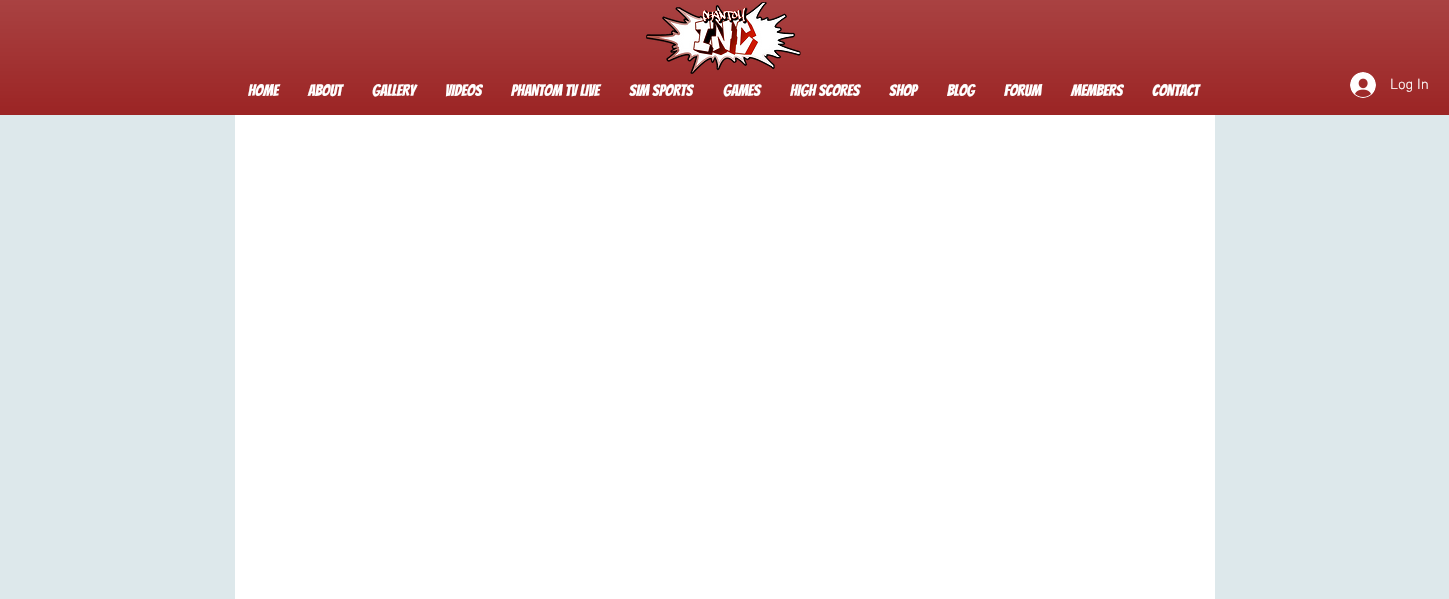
void draw(SkCanvas* canvas) {
	SkPaint fill;
	fill.setAntiAlias(true);
	auto makeFont = [&](const char* family, int weight, float size, bool italic = false) {
		SkFontStyle style(weight, SkFontStyle::kNormal_Width,
			italic ? SkFontStyle::kItalic_Slant : SkFontStyle::kUpright_Slant);
		SkFont result(fontMgr->matchFamilyStyle(family, style), size);
		result.setSubpixel(true);
		return result;
	};
	auto text = [&](const char* s, float x, float y, const SkFont& font) {
		canvas->drawString(s, x, y, font, fill);
	};
	auto box = [&](float l, float t, float r, float b) {
		canvas->drawRect(SkRect::MakeLTRB(l, t, r, b), fill);
	};
	auto picture = [&](const char* path, float l, float t, float r, float b) {
		auto image = SkImages::DeferredFromEncodedData(SkData::MakeFromFileName(path));
		canvas->drawImageRect(image, SkRect::MakeLTRB(l, t, r, b), SkSamplingOptions());
	};
	canvas->clear(0xFFDDE8EB);
	fill.setColor(0xFF8B0000);
	box(0, 0, 1449, 115);
	picture("image0.png", 0, 0, 1449, 115);
	picture("image1.png", 646, 2, 801, 74);
	picture("image2.png", 1350, 72, 1376, 98);
	fill.setColor(0xFFFFFFFF);
	box(235, 115, 1215, 599);
	auto font1 = makeFont("Bangers", 400, 16);
	text("HOME", 248, 96, font1);
	text("ABOUT", 308, 96, font1);
	text("GALLERY", 372, 96, font1);
	text("VIDEOS", 445, 96, font1);
	text("PHANTOM TV LIVE", 511, 96, font1);
	text("SIM SPORTS", 629, 96, font1);
	text("GAMES", 723, 96, font1);
	text("HIGH SCORES", 790, 96, font1);
	text("SHOP", 889, 96, font1);
	text("BLOG", 947, 96, font1);
	text("FORUM", 1004, 96, font1);
	text("MEMBERS", 1071, 96, font1);
	text("CONTACT", 1152, 96, font1);
	auto font2 = makeFont("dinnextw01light", 300, 15);
	text("Log In", 1390, 89, font2);
}
